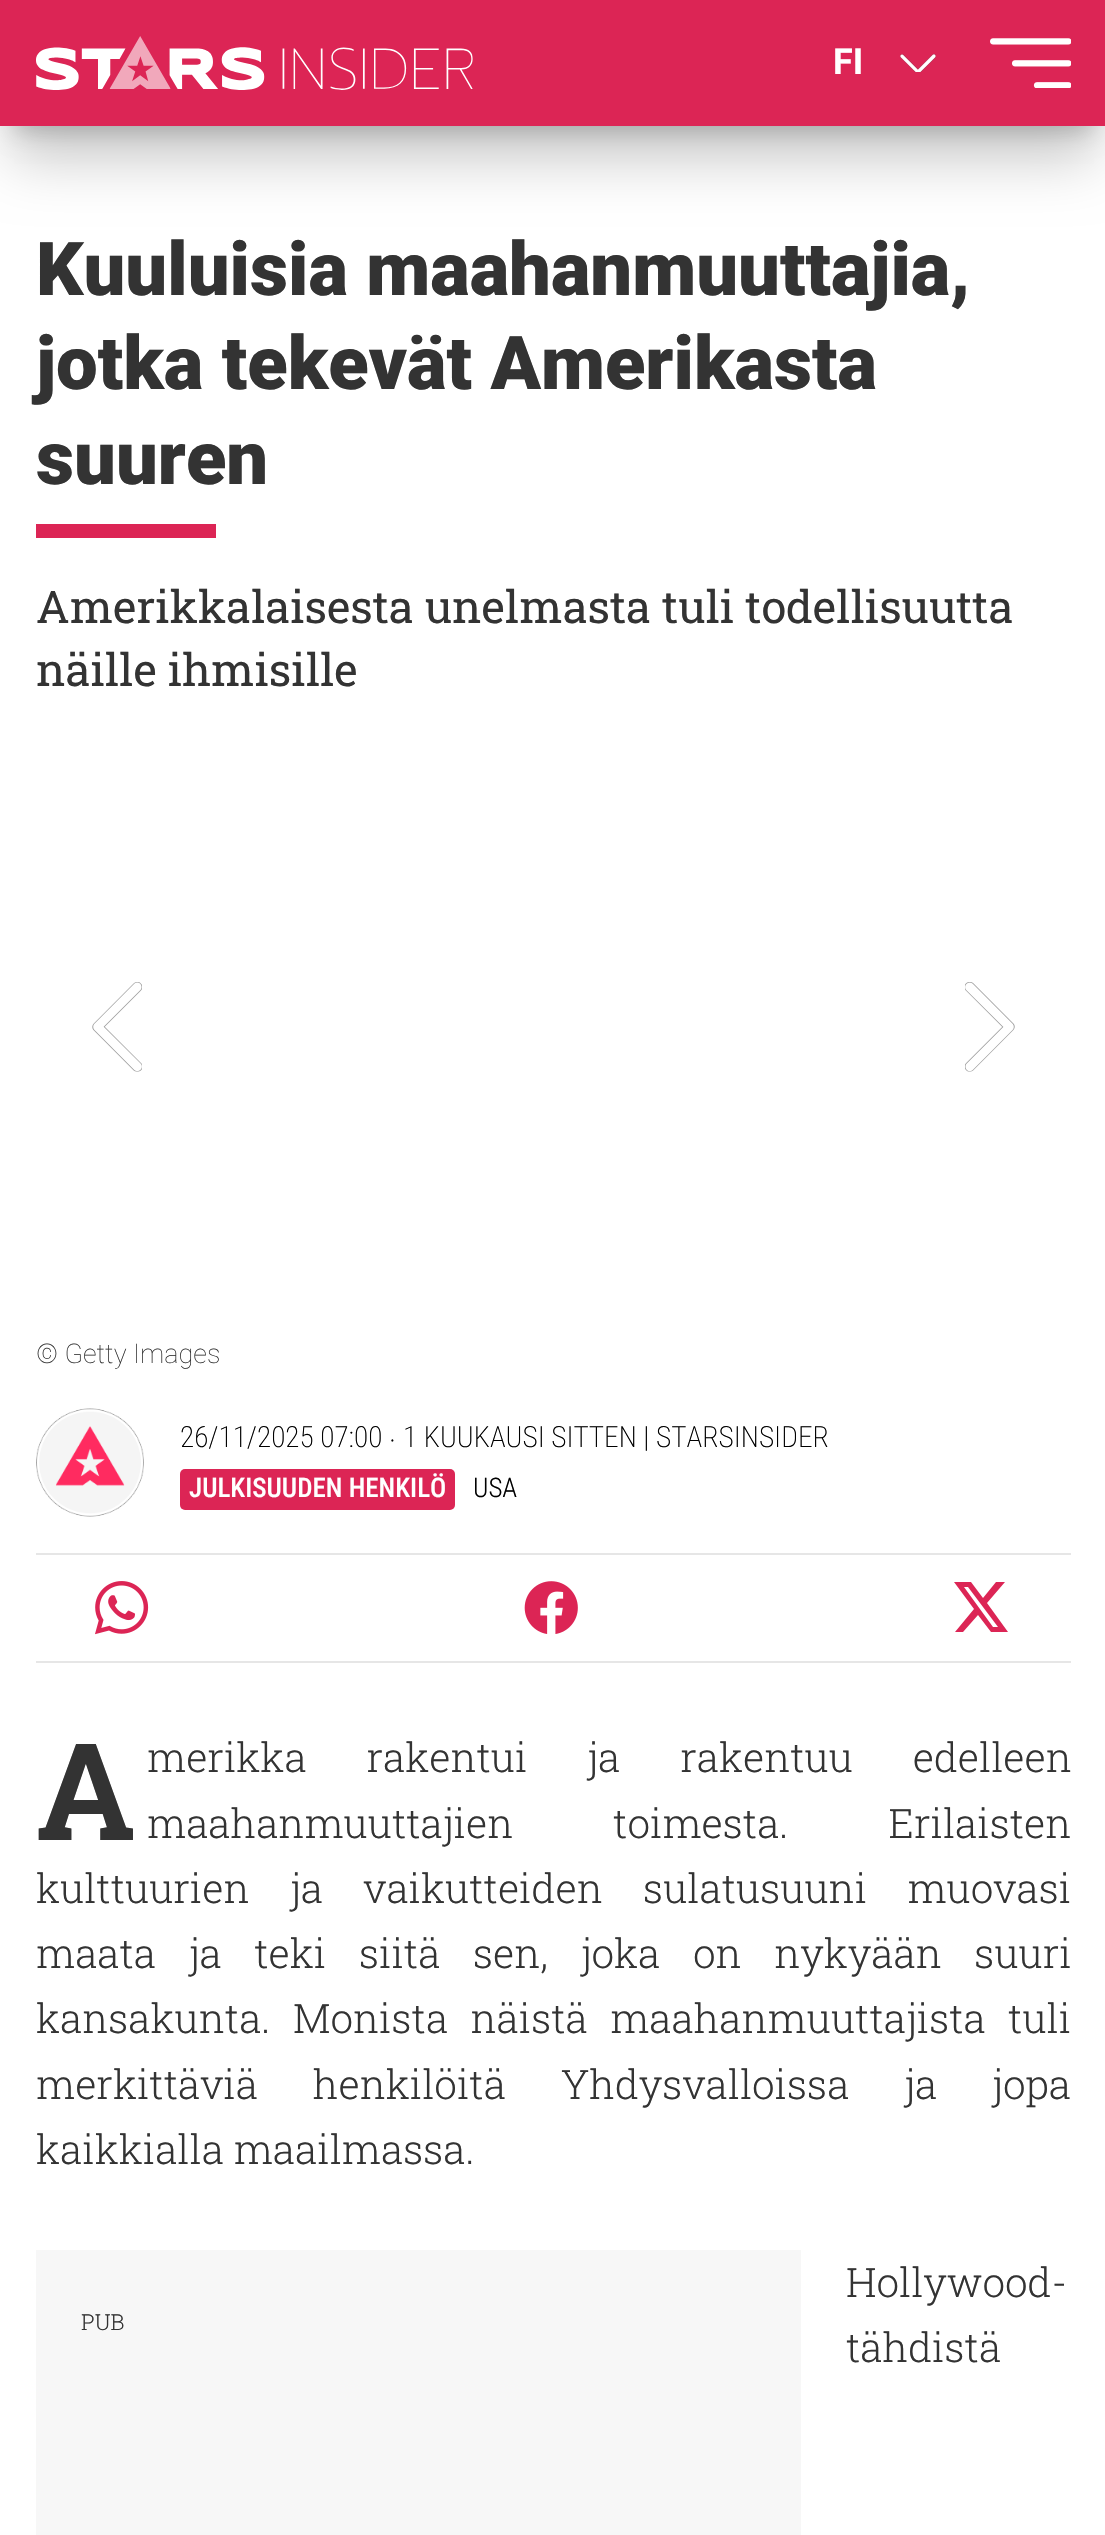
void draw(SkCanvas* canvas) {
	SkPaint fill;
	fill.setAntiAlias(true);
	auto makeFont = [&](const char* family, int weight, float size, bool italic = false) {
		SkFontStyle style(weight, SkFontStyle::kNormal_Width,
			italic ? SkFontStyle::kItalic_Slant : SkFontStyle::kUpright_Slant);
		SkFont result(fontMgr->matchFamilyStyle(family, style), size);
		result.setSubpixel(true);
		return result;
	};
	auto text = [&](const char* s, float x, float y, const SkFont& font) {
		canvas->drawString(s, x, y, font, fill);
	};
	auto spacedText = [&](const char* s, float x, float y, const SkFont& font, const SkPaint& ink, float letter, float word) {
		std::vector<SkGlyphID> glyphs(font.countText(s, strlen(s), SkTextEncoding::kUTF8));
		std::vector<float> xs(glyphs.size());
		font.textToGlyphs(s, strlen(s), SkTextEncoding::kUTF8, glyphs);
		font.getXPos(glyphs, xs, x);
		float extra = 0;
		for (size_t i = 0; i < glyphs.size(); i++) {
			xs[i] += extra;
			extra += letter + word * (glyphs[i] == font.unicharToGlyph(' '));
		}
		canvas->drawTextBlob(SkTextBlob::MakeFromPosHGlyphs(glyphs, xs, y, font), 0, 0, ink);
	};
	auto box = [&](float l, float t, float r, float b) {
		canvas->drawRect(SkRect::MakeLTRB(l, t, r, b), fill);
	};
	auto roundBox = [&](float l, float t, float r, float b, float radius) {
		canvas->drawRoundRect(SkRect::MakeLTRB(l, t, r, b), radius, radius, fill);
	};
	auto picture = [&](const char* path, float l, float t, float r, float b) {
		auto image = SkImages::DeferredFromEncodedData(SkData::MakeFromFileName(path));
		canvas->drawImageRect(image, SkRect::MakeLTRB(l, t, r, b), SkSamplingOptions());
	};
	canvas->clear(0xFFFFFFFF);
	fill.setColor(0x33000000);
	fill.setMaskFilter(SkMaskFilter::MakeBlur(kNormal_SkBlurStyle, 11));
	canvas->drawRect(SkRect::MakeLTRB(14, 32, 1094, 131), fill);
	fill.setMaskFilter(nullptr);
	fill.setMaskFilter(SkMaskFilter::MakeBlur(kNormal_SkBlurStyle, 28));
	canvas->drawRect(SkRect::MakeLTRB(11, 56, 1096, 160), fill);
	fill.setMaskFilter(nullptr);
	fill.setColor(0xFFDC2555);
	box(0, 0, 1105, 126);
	picture("image0.png", 36, 36, 473, 90);
	picture("image1.png", 900, 54, 936, 72);
	picture("image2.png", 990, 38, 1071, 88);
	box(36, 524, 216, 538);
	picture("image3.png", 92, 982, 142, 1072);
	picture("image4.png", 965, 982, 1015, 1072);
	picture("image5.png", 36, 1408, 144, 1517);
	roundBox(180, 1469, 455, 1510, 5);
	fill.setColor(0xFFE6E6E6);
	box(36, 1553, 1071, 1555);
	box(36, 1661, 1071, 1663);
	picture("image6.png", 95, 1581, 149, 1635);
	picture("image7.png", 524, 1581, 578, 1634);
	fill.setColor(0xFFDC2555);
	canvas->drawPath(SkPathBuilder().moveTo(993, 1627).lineTo(998, 1627).lineTo(968, 1587).lineTo(964, 1587).close().moveTo(996, 1582).lineTo(1005, 1582).lineTo(987, 1603).lineTo(1008, 1632).lineTo(991, 1632).lineTo(978, 1615).lineTo(963, 1632).lineTo(955, 1632).lineTo(974, 1609).lineTo(954, 1582).lineTo(971, 1582).lineTo(983, 1598).close().detach(), fill);
	fill.setColor(0xFFF7F7F7);
	box(36, 2250, 801, 2535);
	auto font1 = makeFont("Roboto", 700, 36);
	fill.setColor(0xFFFFFFFF);
	text("FI", 833, 74, font1);
	auto font2 = makeFont("Roboto", 900, 74.25f);
	fill.setColor(0xFF333333);
	text("Kuuluisia maahanmuuttajia,", 36, 295, font2);
	text("jotka tekevät Amerikasta", 36, 389, font2);
	text("suuren", 36, 484, font2);
	auto font3 = makeFont("Roboto Slab", 400, 45);
	text("Amerikkalaisesta unelmasta tuli todellisuutta", 36, 623, font3);
	text("näille ihmisille", 36, 686, font3);
	auto font4 = makeFont("Roboto", 100, 27);
	text("© Getty Images", 36, 1363, font4);
	auto font5 = makeFont("Roboto Condensed", 200, 29.25f);
	fill.setColor(0xFF000000);
	text("26/11/2025 07:00", 180, 1447, font5);
	auto font6 = makeFont("Noto Sans", 200, 29.25f);
	text("‧", 389, 1447, font6);
	text("1 KUUKAUSI SITTEN | STARSINSIDER", 403, 1447, font5);
	auto font7 = makeFont("Roboto Condensed", 500, 27);
	fill.setColor(0xFFFFFFFF);
	text("JULKISUUDEN HENKILÖ", 189, 1497, font7);
	auto font8 = makeFont("Roboto Condensed", 300, 27);
	fill.setColor(0xFF000000);
	text("USA", 473, 1497, font8);
	auto font9 = makeFont("Roboto Slab", 700, 135);
	fill.setColor(0xFF333333);
	text("A", 36, 1840, font9);
	auto font10 = makeFont("Roboto Slab", 300, 40.5f);
	spacedText("merikka rakentui ja rakentuu edelleen", 147, 1772, font10, fill, 0, 50);
	spacedText("maahanmuuttajien toimesta. Erilaisten", 147, 1838, font10, fill, 0, 90);
	spacedText("kulttuurien ja vaikutteiden sulatusuuni muovasi", 36, 1903, font10, fill, 0, 30.5f);
	spacedText("maata ja teki siitä sen, joka on nykyään suuri", 36, 1968, font10, fill, 0, 22.75f);
	spacedText("kansakunta. Monista näistä maahanmuuttajista tuli", 36, 2033, font10, fill, 0, 12.5f);
	spacedText("merkittäviä henkilöitä Yhdysvalloissa ja jopa", 36, 2099, font10, fill, 0, 45);
	text("kaikkialla maailmassa.", 36, 2164, font10);
	auto font11 = makeFont("Roboto Slab", 300, 22);
	text("PUB", 81, 2330, font11);
	text("Hollywood-", 846, 2297, font10);
	text("tähdistä", 846, 2362, font10);
}
